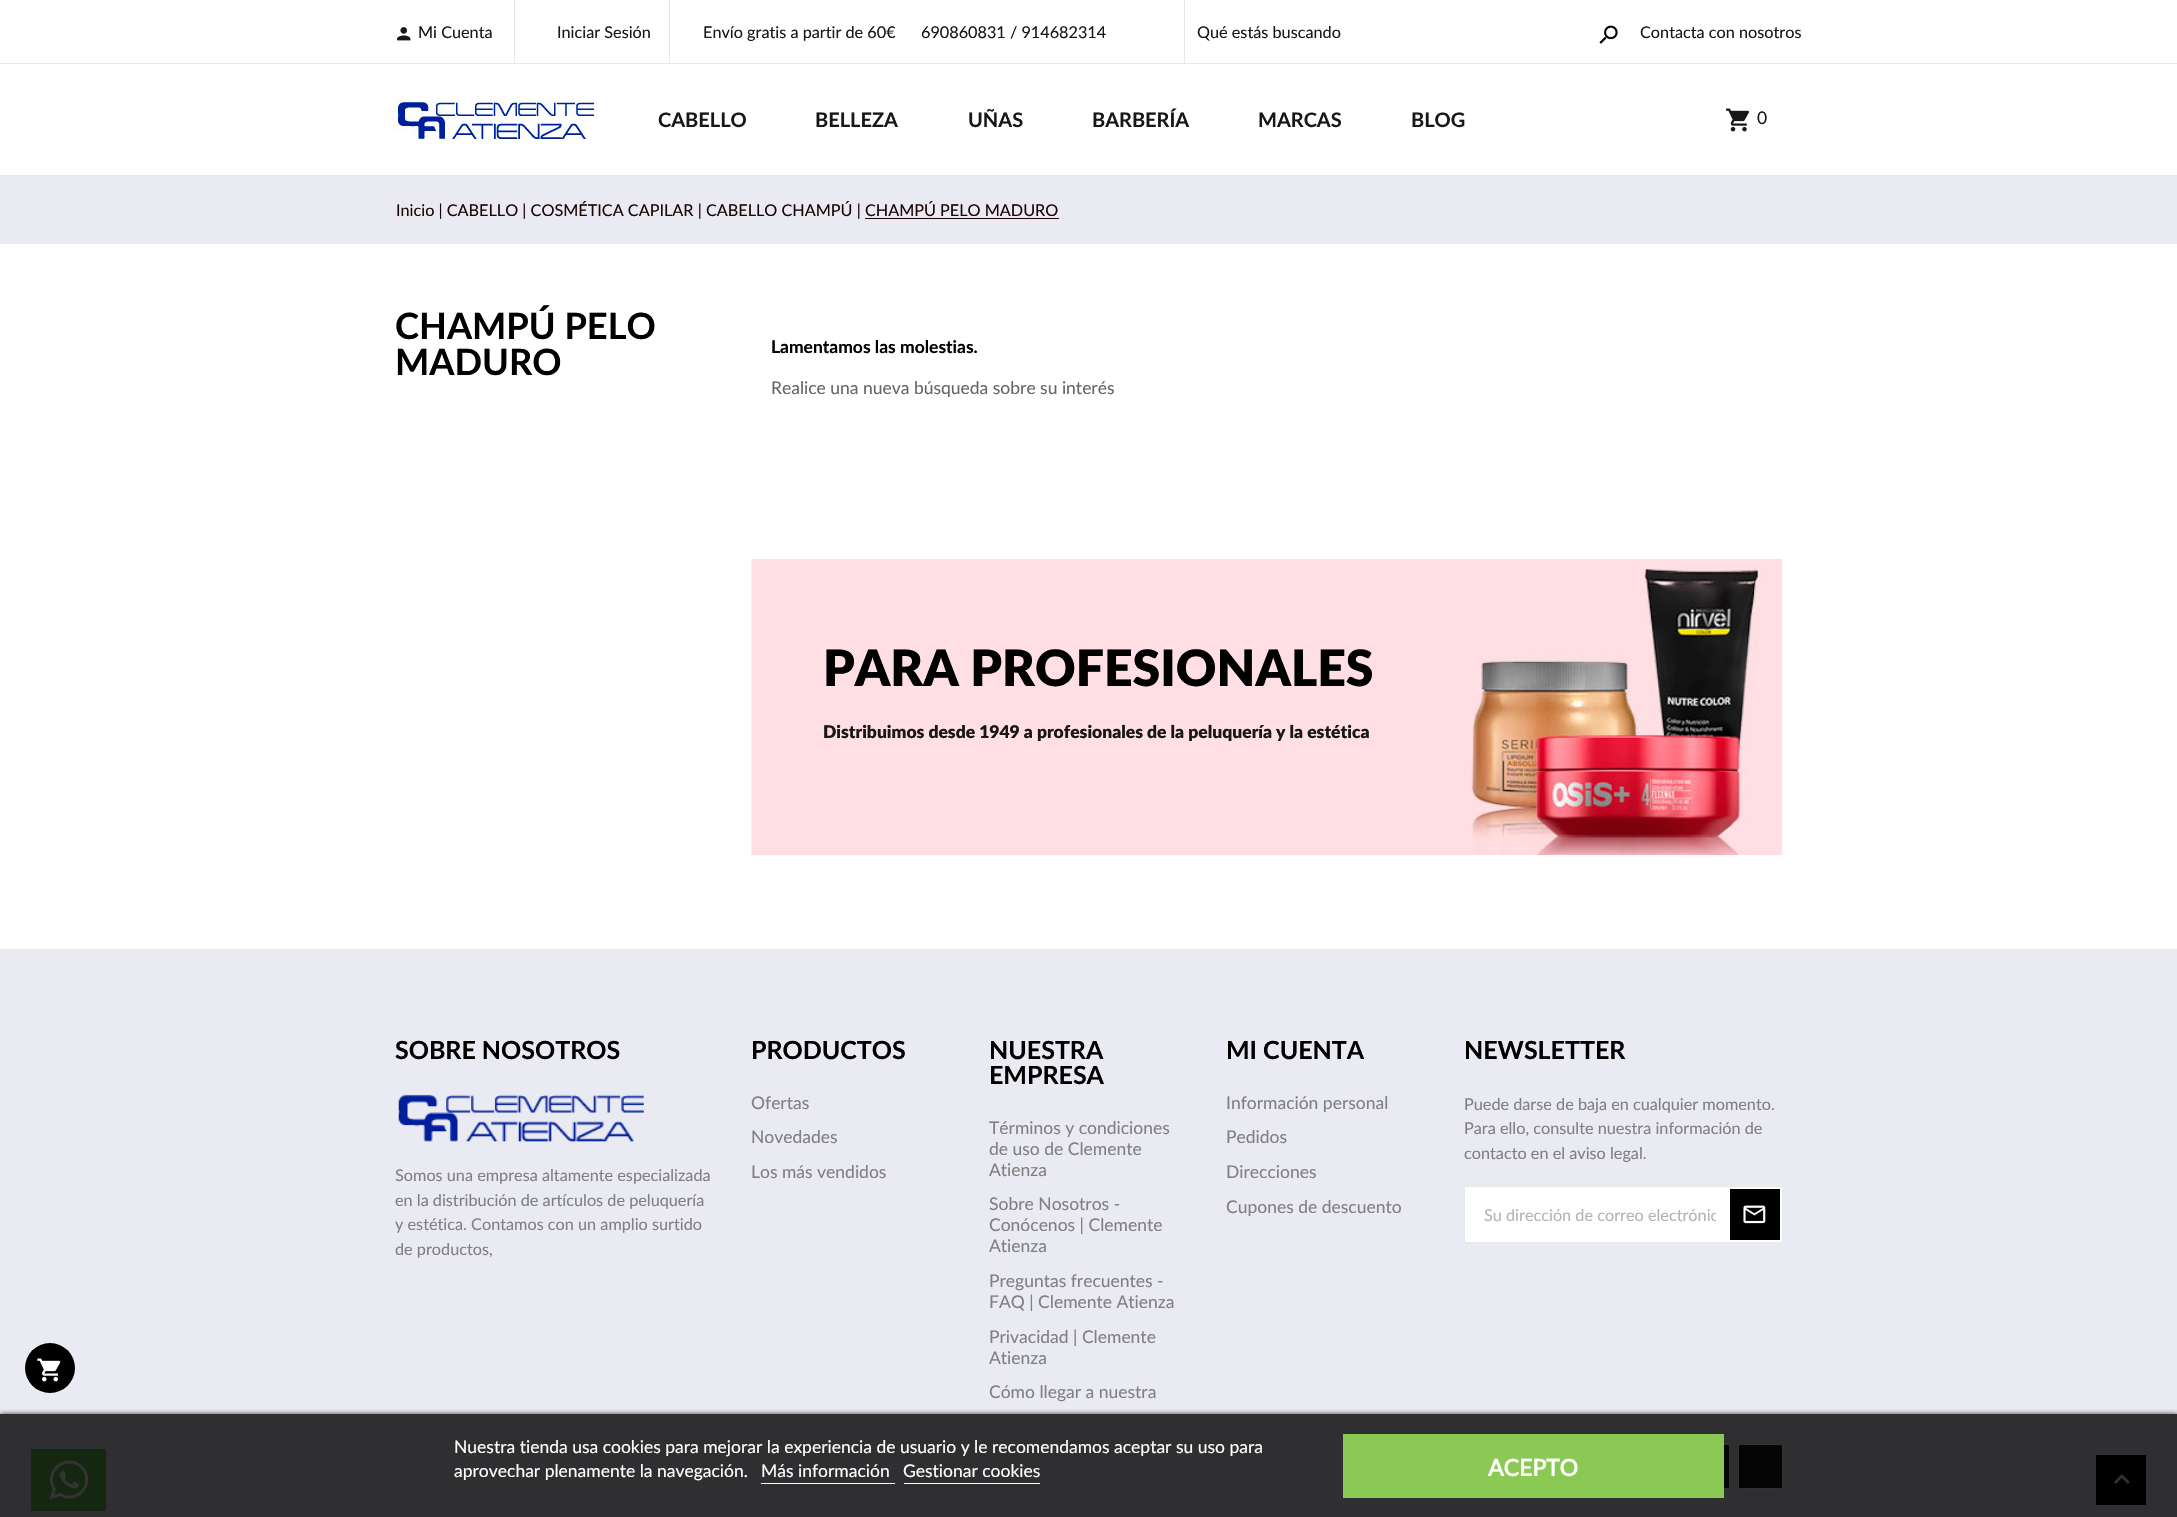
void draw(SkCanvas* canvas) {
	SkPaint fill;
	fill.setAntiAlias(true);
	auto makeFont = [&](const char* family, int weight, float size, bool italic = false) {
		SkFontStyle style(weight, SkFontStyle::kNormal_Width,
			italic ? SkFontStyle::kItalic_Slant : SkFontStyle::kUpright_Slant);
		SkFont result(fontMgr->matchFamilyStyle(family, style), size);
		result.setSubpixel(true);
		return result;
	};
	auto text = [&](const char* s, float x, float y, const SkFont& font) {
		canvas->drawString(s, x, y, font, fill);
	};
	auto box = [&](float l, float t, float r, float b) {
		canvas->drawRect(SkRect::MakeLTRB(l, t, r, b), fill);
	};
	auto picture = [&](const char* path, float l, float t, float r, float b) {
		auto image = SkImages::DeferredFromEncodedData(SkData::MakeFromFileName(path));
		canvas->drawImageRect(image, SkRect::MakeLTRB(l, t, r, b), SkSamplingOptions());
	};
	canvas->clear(0xFFFFFFFF);
	fill.setColor(0xFFEAEAF2);
	box(0, 949, 2177, 1517);
	fill.setColor(0xFF000000);
	canvas->drawCircle(50, 1368, 25, fill);
	picture("image0.png", 37, 1358, 61, 1382);
	fill.setColor(0xFFE7E7E7);
	box(0, 63, 2177, 64);
	picture("image1.png", 397, 27, 411, 41);
	box(669, 0, 670, 63);
	box(514, 0, 515, 63);
	box(1184, 0, 1185, 63);
	picture("image2.png", 1599, 25, 1618, 44);
	box(0, 175, 2177, 176);
	picture("image3.png", 395, 100, 595, 140);
	picture("image4.png", 1726, 108, 1749, 132);
	fill.setColor(0xFFEAEAF2);
	box(0, 176, 2177, 244);
	fill.setColor(0xFF1D0505);
	box(865, 218, 1059, 219);
	picture("image5.png", 751, 559, 1783, 855);
	picture("image6.png", 398, 1094, 644, 1142);
	fill.setColor(0xFFFFFFFF);
	canvas->drawRect(SkRect::MakeLTRB(1464.5f, 1186.5f, 1782.5f, 1242.5f), fill);
	fill.setStyle(SkPaint::kStroke_Style);
	fill.setStrokeWidth(1);
	fill.setColor(0xFFE5EBEA);
	canvas->drawRect(SkRect::MakeLTRB(1464.5f, 1186.5f, 1782.5f, 1242.5f), fill);
	fill.setStyle(SkPaint::kFill_Style);
	fill.setColor(0xFF000000);
	box(1730, 1189, 1780, 1240);
	picture("image7.png", 1743, 1205, 1766, 1224);
	fill.setColor(0xFF65BC54);
	box(31, 1449, 106, 1511);
	picture("image8.png", 49, 1460, 89, 1500);
	fill.setColor(0xFF171717);
	box(1724, 1445, 1729, 1488);
	fill.setStyle(SkPaint::kStroke_Style);
	fill.setColor(0xFFFFFFFF);
	canvas->drawRect(SkRect::MakeLTRB(1685.5f, 1444.5f, 1729.5f, 1488.5f), fill);
	fill.setStyle(SkPaint::kFill_Style);
	fill.setColor(0xFF171717);
	canvas->drawRect(SkRect::MakeLTRB(1738.5f, 1444.5f, 1782.5f, 1488.5f), fill);
	fill.setStyle(SkPaint::kStroke_Style);
	fill.setColor(0xFFFFFFFF);
	canvas->drawRect(SkRect::MakeLTRB(1738.5f, 1444.5f, 1782.5f, 1488.5f), fill);
	fill.setStyle(SkPaint::kFill_Style);
	fill.setColor(0xFF000000);
	box(2096, 1455, 2146, 1505);
	picture("image9.png", 2114, 1474, 2130, 1484);
	canvas->save();
	canvas->clipRect(SkRect::MakeLTRB(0, 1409, 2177, 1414));
	fill.setMaskFilter(SkMaskFilter::MakeBlur(kNormal_SkBlurStyle, 3));
	canvas->drawRect(SkRect::MakeLTRB(0, 1415, 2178, 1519), fill);
	fill.setMaskFilter(nullptr);
	canvas->restore();
	fill.setColor(0xCC000000);
	box(0, 1414, 2177, 1517);
	fill.setColor(0xFFFFFFFF);
	box(761, 1483, 895, 1484);
	box(904, 1483, 1040, 1484);
	fill.setColor(0xFF8BC954);
	box(1343, 1434, 1724, 1498);
	auto font1 = makeFont("Lato", 400, 16.25f);
	fill.setColor(0xFF181818);
	text("Mi Cuenta", 418, 38, font1);
	text("Iniciar Sesión", 557, 38, font1);
	text("Envío gratis a partir de 60€", 703, 38, font1);
	text("690860831 / 914682314", 921, 38, font1);
	text("Qué estás buscando", 1197, 38, font1);
	text("Contacta con nosotros", 1640, 38, font1);
	auto font2 = makeFont("Lato", 700, 20);
	text("CABELLO", 658, 127, font2);
	text("BELLEZA", 815, 127, font2);
	text("UÑAS", 968, 127, font2);
	text("BARBERÍA", 1092, 127, font2);
	text("MARCAS", 1258, 127, font2);
	text("BLOG", 1411, 127, font2);
	auto font3 = makeFont("Lato", 400, 17.5f);
	text("0", 1757, 124, font3);
	fill.setColor(0xFF1D0505);
	text("Inicio | CABELLO | COSMÉTICA CAPILAR | CABELLO CHAMPÚ | CHAMPÚ PELO MADURO", 396, 216, font1);
	auto font4 = makeFont("Lato", 700, 36.25f);
	fill.setColor(0xFF000000);
	text("CHAMPÚ PELO", 395, 339, font4);
	text("MADURO", 395, 375, font4);
	auto font5 = makeFont("Lato", 700, 17.5f);
	text("Lamentamos las molestias.", 771, 353, font5);
	fill.setColor(0xFF666666);
	text("Realice una nueva búsqueda sobre su interés", 771, 394, font3);
	auto font6 = makeFont("Lato", 900, 50);
	fill.setColor(0xFF000000);
	text("PARA PROFESIONALES", 823, 686, font6);
	auto font7 = makeFont("Lato", 900, 17.5f);
	fill.setColor(0xFF181818);
	text("Distribuimos desde 1949 a profesionales de la peluquería y la estética", 823, 738, font7);
	auto font8 = makeFont("Lato", 700, 25);
	fill.setColor(0xFF000000);
	text("SOBRE NOSOTROS", 395, 1059, font8);
	fill.setColor(0xFF808080);
	text("Somos una empresa altamente especializada", 395, 1181, font1);
	text("en la distribución de artículos de peluquería", 395, 1206, font1);
	text("y estética. Contamos con un amplio surtido", 395, 1230, font1);
	text("de productos,", 395, 1255, font1);
	fill.setColor(0xFF000000);
	text("PRODUCTOS", 751, 1059, font8);
	fill.setColor(0xFF808080);
	text("Ofertas", 751, 1109, font3);
	text("Novedades", 751, 1143, font3);
	text("Los más vendidos", 751, 1178, font3);
	fill.setColor(0xFF000000);
	text("NUESTRA", 989, 1059, font8);
	text("EMPRESA", 989, 1084, font8);
	fill.setColor(0xFF808080);
	text("Términos y condiciones", 989, 1134, font3);
	text("de uso de Clemente", 989, 1155, font3);
	text("Atienza", 989, 1176, font3);
	text("Sobre Nosotros -", 989, 1210, font3);
	text("Conócenos | Clemente", 989, 1231, font3);
	text("Atienza", 989, 1252, font3);
	text("Preguntas frecuentes -", 989, 1287, font3);
	text("FAQ | Clemente Atienza", 989, 1308, font3);
	text("Privacidad | Clemente", 989, 1343, font3);
	text("Atienza", 989, 1364, font3);
	text("Cómo llegar a nuestra", 989, 1398, font3);
	fill.setColor(0xFF000000);
	text("MI CUENTA", 1226, 1059, font8);
	fill.setColor(0xFF808080);
	text("Información personal", 1226, 1109, font3);
	text("Pedidos", 1226, 1143, font3);
	text("Direcciones", 1226, 1178, font3);
	text("Cupones de descuento", 1226, 1213, font3);
	fill.setColor(0xFF000000);
	text("NEWSLETTER", 1464, 1059, font8);
	fill.setColor(0xFF808080);
	text("Puede darse de baja en cualquier momento.", 1464, 1110, font1);
	text("Para ello, consulte nuestra información de", 1464, 1134, font1);
	text("contacto en el aviso legal.", 1464, 1159, font1);
	canvas->save();
	canvas->clipRect(SkRect::MakeLTRB(1484, 1204, 1716, 1226));
	fill.setColor(0xFFB3B3B3);
	text("Su dirección de correo electrónic", 1484, 1221, font1);
	canvas->restore();
	fill.setColor(0xFFFFFFFF);
	text("Nuestra tienda usa cookies para mejorar la experiencia de usuario y le recomendamos aceptar su uso para", 454, 1453, font3);
	text("aprovechar plenamente la navegación.", 454, 1477, font3);
	text("Más información", 761, 1477, font3);
	text("Gestionar cookies", 903, 1477, font3);
	auto font9 = makeFont("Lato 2", 700, 23);
	text("ACEPTO", 1488, 1476, font9);
}
